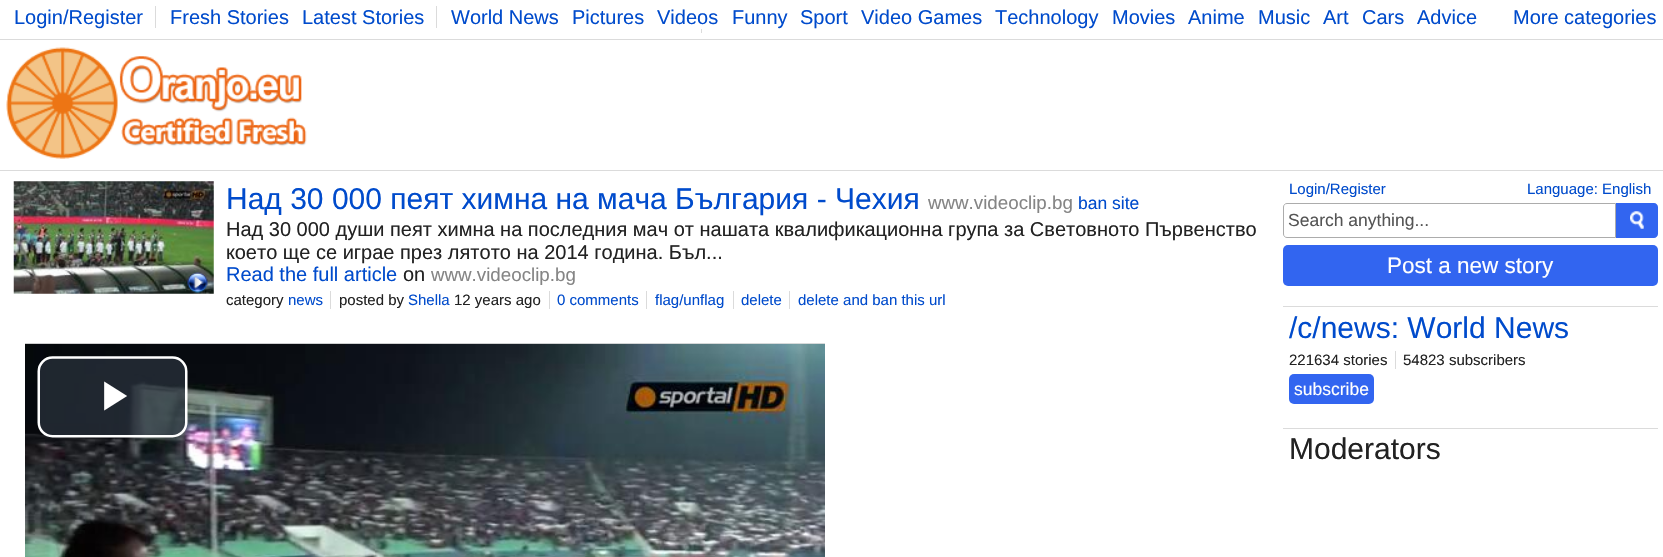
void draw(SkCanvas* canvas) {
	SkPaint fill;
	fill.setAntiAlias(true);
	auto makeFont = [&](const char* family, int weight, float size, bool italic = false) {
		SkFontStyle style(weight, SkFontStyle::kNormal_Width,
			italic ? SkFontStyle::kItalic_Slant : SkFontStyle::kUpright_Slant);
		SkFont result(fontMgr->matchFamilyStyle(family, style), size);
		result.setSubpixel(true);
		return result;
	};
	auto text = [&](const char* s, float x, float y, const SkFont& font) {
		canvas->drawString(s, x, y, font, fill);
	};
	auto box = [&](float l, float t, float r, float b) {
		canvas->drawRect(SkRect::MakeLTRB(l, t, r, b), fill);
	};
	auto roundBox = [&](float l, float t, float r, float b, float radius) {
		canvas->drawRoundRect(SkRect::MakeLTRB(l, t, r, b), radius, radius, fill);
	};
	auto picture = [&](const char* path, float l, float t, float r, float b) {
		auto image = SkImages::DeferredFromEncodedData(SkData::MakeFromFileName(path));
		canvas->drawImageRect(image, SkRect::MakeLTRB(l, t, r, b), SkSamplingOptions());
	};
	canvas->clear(0xFFFFFFFF);
	fill.setColor(0xFFDBDBDB);
	box(0, 39, 1663, 40);
	box(155, 6, 156, 28);
	box(436, 6, 437, 28);
	box(701, 29, 702, 33);
	box(0, 170, 1663, 171);
	picture("image0.png", 6, 47, 307, 159);
	picture("image1.png", 13, 181, 214, 294);
	picture("image2.png", 187, 272, 208, 293);
	box(330, 291, 331, 309);
	box(549, 291, 550, 309);
	box(646, 291, 647, 309);
	box(733, 291, 734, 309);
	box(789, 291, 790, 309);
	picture("image3.png", 25, 343, 825, 557);
	fill.setStyle(SkPaint::kStroke_Style);
	fill.setStrokeWidth(1);
	fill.setColor(0xFFACACAC);
	canvas->drawPath(SkPathBuilder().moveTo(1287, 203.5f).lineTo(1615.5f, 203.5f).lineTo(1615.5f, 237.5f).lineTo(1287, 237.5f).cubicTo(1285, 237.5f, 1283.5f, 236, 1283.5f, 234).lineTo(1283.5f, 207).cubicTo(1283.5f, 205, 1285, 203.5f, 1287, 203.5f).close().detach(), fill);
	fill.setStyle(SkPaint::kFill_Style);
	fill.setColor(0xFF3265F0);
	canvas->drawPath(SkPathBuilder().moveTo(1616, 203).lineTo(1654, 203).cubicTo(1656, 203, 1658, 205, 1658, 207).lineTo(1658, 234).cubicTo(1658, 236, 1656, 238, 1654, 238).lineTo(1616, 238).close().detach(), fill);
	picture("image4.png", 1630, 211, 1644, 229);
	roundBox(1283, 245, 1658, 286, 5);
	fill.setColor(0xFFDBDBDB);
	box(1283, 306, 1658, 307);
	box(1395, 351, 1396, 369);
	fill.setColor(0xFF3265F0);
	roundBox(1289, 374, 1374, 404, 5);
	fill.setColor(0xFFDBDBDB);
	box(1283, 428, 1658, 429);
	auto font1 = makeFont("Liberation Sans", 400, 20);
	fill.setColor(0xFF004BCC);
	text("Login/Register", 14, 24, font1);
	text("Fresh Stories", 170, 24, font1);
	text("Latest Stories", 302, 24, font1);
	text("World News", 451, 24, font1);
	text("Pictures", 572, 24, font1);
	text("Videos", 657, 24, font1);
	text("Funny", 732, 24, font1);
	text("Sport", 800, 24, font1);
	text("Video Games", 861, 24, font1);
	text("Technology", 995, 24, font1);
	text("Movies", 1112, 24, font1);
	text("Anime", 1188, 24, font1);
	text("Music", 1258, 24, font1);
	text("Art", 1323, 24, font1);
	text("Cars", 1362, 24, font1);
	text("Advice", 1417, 24, font1);
	text("More categories", 1513, 24, font1);
	auto font2 = makeFont("Liberation Sans", 400, 30);
	text("Над 30 000 пеят химна на мача България - Чехия", 226, 209, font2);
	auto font3 = makeFont("Liberation Sans", 400, 18.75f);
	fill.setColor(0xFF858585);
	text("www.videoclip.bg", 928, 209, font3);
	auto font4 = makeFont("Liberation Sans", 400, 17.5f);
	fill.setColor(0xFF004BCC);
	text("ban site", 1078, 209, font4);
	fill.setColor(0xFF222222);
	text("Над 30 000 души пеят химна на последния мач от нашата квалификационна група за Световното Първенство", 226, 236, font1);
	text("което ще се играе през лятото на 2014 година. Бъл...", 226, 259, font1);
	fill.setColor(0xFF004BCC);
	text("Read the full article", 226, 281, font1);
	fill.setColor(0xFF222222);
	text("on", 403, 281, font1);
	fill.setColor(0xFF858585);
	text("www.videoclip.bg", 431, 281, font3);
	auto font5 = makeFont("Liberation Sans", 400, 15);
	fill.setColor(0xFF222222);
	text("category", 226, 305, font5);
	fill.setColor(0xFF004BCC);
	text("news", 288, 305, font5);
	fill.setColor(0xFF222222);
	text("posted by", 339, 305, font5);
	fill.setColor(0xFF004BCC);
	text("Shella", 408, 305, font5);
	fill.setColor(0xFF222222);
	text("12 years ago", 454, 305, font5);
	fill.setColor(0xFF004BCC);
	text("0 comments", 557, 305, font5);
	text("flag/unflag", 655, 305, font5);
	text("delete", 741, 305, font5);
	text("delete and ban this url", 798, 305, font5);
	text("Login/Register", 1289, 194, font5);
	text("Language: English", 1527, 194, font5);
	fill.setColor(0xFF555555);
	text("Search anything...", 1288, 226, font4);
	auto font6 = makeFont("Liberation Sans", 400, 22.5f);
	fill.setColor(0xFFFFFFFF);
	text("Post a new story", 1387, 273, font6);
	fill.setColor(0xFF004BCC);
	text("/c/news: World News", 1289, 338, font2);
	fill.setColor(0xFF222222);
	text("221634 stories", 1289, 365, font5);
	text("54823 subscribers", 1403, 365, font5);
	fill.setColor(0xFFFFFFFF);
	text("subscribe", 1294, 395, font4);
	fill.setColor(0xFF222222);
	text("Moderators", 1289, 459, font2);
}
